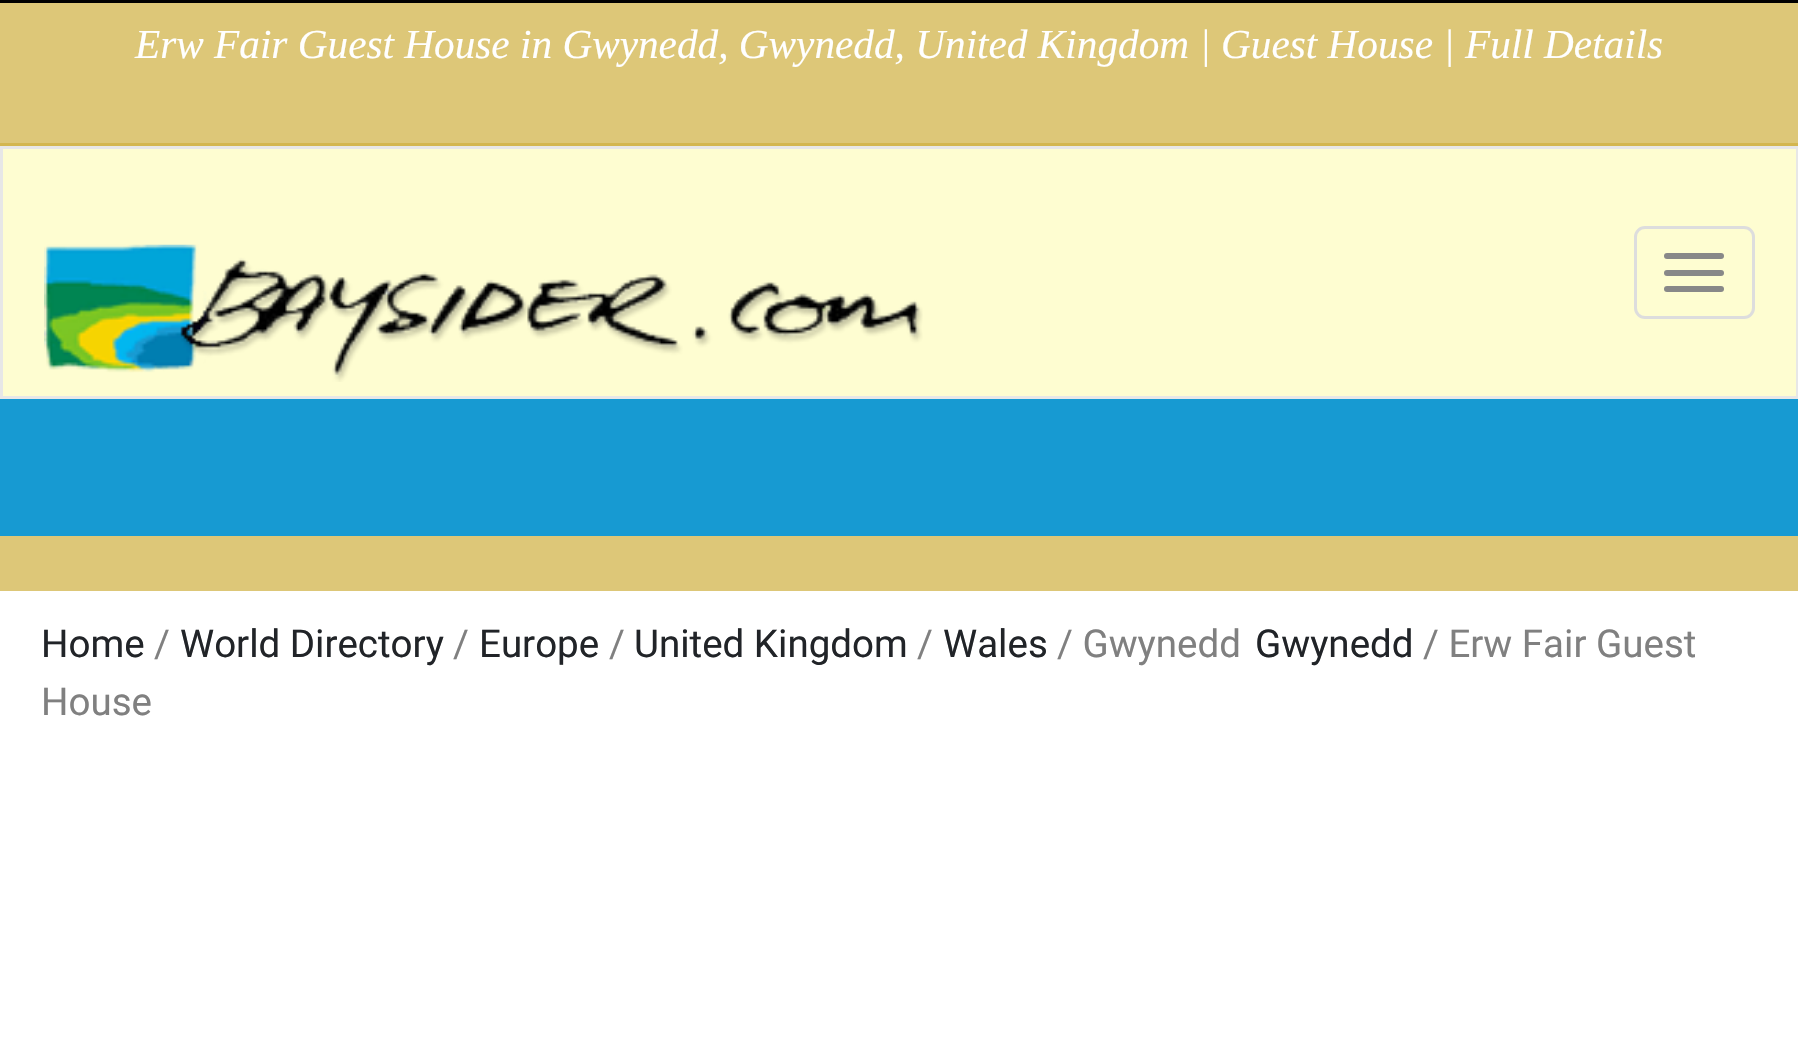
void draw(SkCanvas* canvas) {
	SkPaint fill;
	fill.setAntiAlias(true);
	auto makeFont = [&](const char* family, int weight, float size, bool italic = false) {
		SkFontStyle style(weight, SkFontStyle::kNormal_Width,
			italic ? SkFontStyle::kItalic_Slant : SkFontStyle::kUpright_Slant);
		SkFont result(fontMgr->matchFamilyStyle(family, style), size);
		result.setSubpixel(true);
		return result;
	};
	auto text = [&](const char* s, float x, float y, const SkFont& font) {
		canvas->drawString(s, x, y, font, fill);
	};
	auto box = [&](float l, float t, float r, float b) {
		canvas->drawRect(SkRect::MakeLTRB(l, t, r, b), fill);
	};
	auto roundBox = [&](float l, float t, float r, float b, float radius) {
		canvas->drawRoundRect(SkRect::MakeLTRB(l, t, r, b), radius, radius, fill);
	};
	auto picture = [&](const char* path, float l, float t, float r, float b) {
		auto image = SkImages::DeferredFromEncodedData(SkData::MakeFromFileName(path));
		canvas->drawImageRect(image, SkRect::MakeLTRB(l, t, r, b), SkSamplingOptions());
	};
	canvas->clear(0xFFDDC778);
	fill.setColor(0xFF000000);
	box(0, 0, 1798, 3);
	fill.setColor(0xFF179AD2);
	box(0, 399, 1798, 536);
	fill.setColor(0xFFD3B64F);
	box(0, 143, 1798, 146);
	fill.setColor(0xFFFEFDD1);
	canvas->drawRect(SkRect::MakeLTRB(1.5f, 147.5f, 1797.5f, 397.5f), fill);
	fill.setStyle(SkPaint::kStroke_Style);
	fill.setStrokeWidth(3);
	fill.setColor(0xFFE7E7E7);
	canvas->drawRect(SkRect::MakeLTRB(1.5f, 147.5f, 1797.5f, 397.5f), fill);
	picture("image0.png", 44, 244, 923, 382);
	fill.setColor(0xFFDDDDDD);
	canvas->drawRoundRect(SkRect::MakeLTRB(1635.5f, 227.5f, 1753.5f, 317.5f), 9.5f, 9.5f, fill);
	fill.setStyle(SkPaint::kFill_Style);
	fill.setColor(0xFF888888);
	roundBox(1664, 253, 1724, 259, 3);
	roundBox(1664, 270, 1724, 276, 3);
	roundBox(1664, 286, 1724, 292, 3);
	fill.setColor(0xFFFFFFFF);
	box(0, 591, 1798, 1059);
	auto font1 = makeFont("Liberation Serif", 400, 41.25f, true);
	text("Erw Fair Guest House in Gwynedd, Gwynedd, United Kingdom | Guest House | Full Details", 135, 58, font1);
	auto font2 = makeFont("Roboto", 400, 38.5f);
	fill.setColor(0xFF212428);
	text("Home", 41, 657, font2);
	fill.setColor(0xFF808080);
	text("/", 154, 657, font2);
	fill.setColor(0xFF212428);
	text("World Directory", 180, 657, font2);
	fill.setColor(0xFF808080);
	text("/", 453, 657, font2);
	fill.setColor(0xFF212428);
	text("Europe", 479, 657, font2);
	fill.setColor(0xFF808080);
	text("/", 609, 657, font2);
	fill.setColor(0xFF212428);
	text("United Kingdom", 634, 657, font2);
	fill.setColor(0xFF808080);
	text("/", 917, 657, font2);
	fill.setColor(0xFF212428);
	text("Wales", 943, 657, font2);
	fill.setColor(0xFF808080);
	text("/ Gwynedd", 1057, 657, font2);
	fill.setColor(0xFF212428);
	text("Gwynedd", 1255, 657, font2);
	fill.setColor(0xFF808080);
	text("/ Erw Fair Guest", 1423, 657, font2);
	text("House", 41, 715, font2);
}
